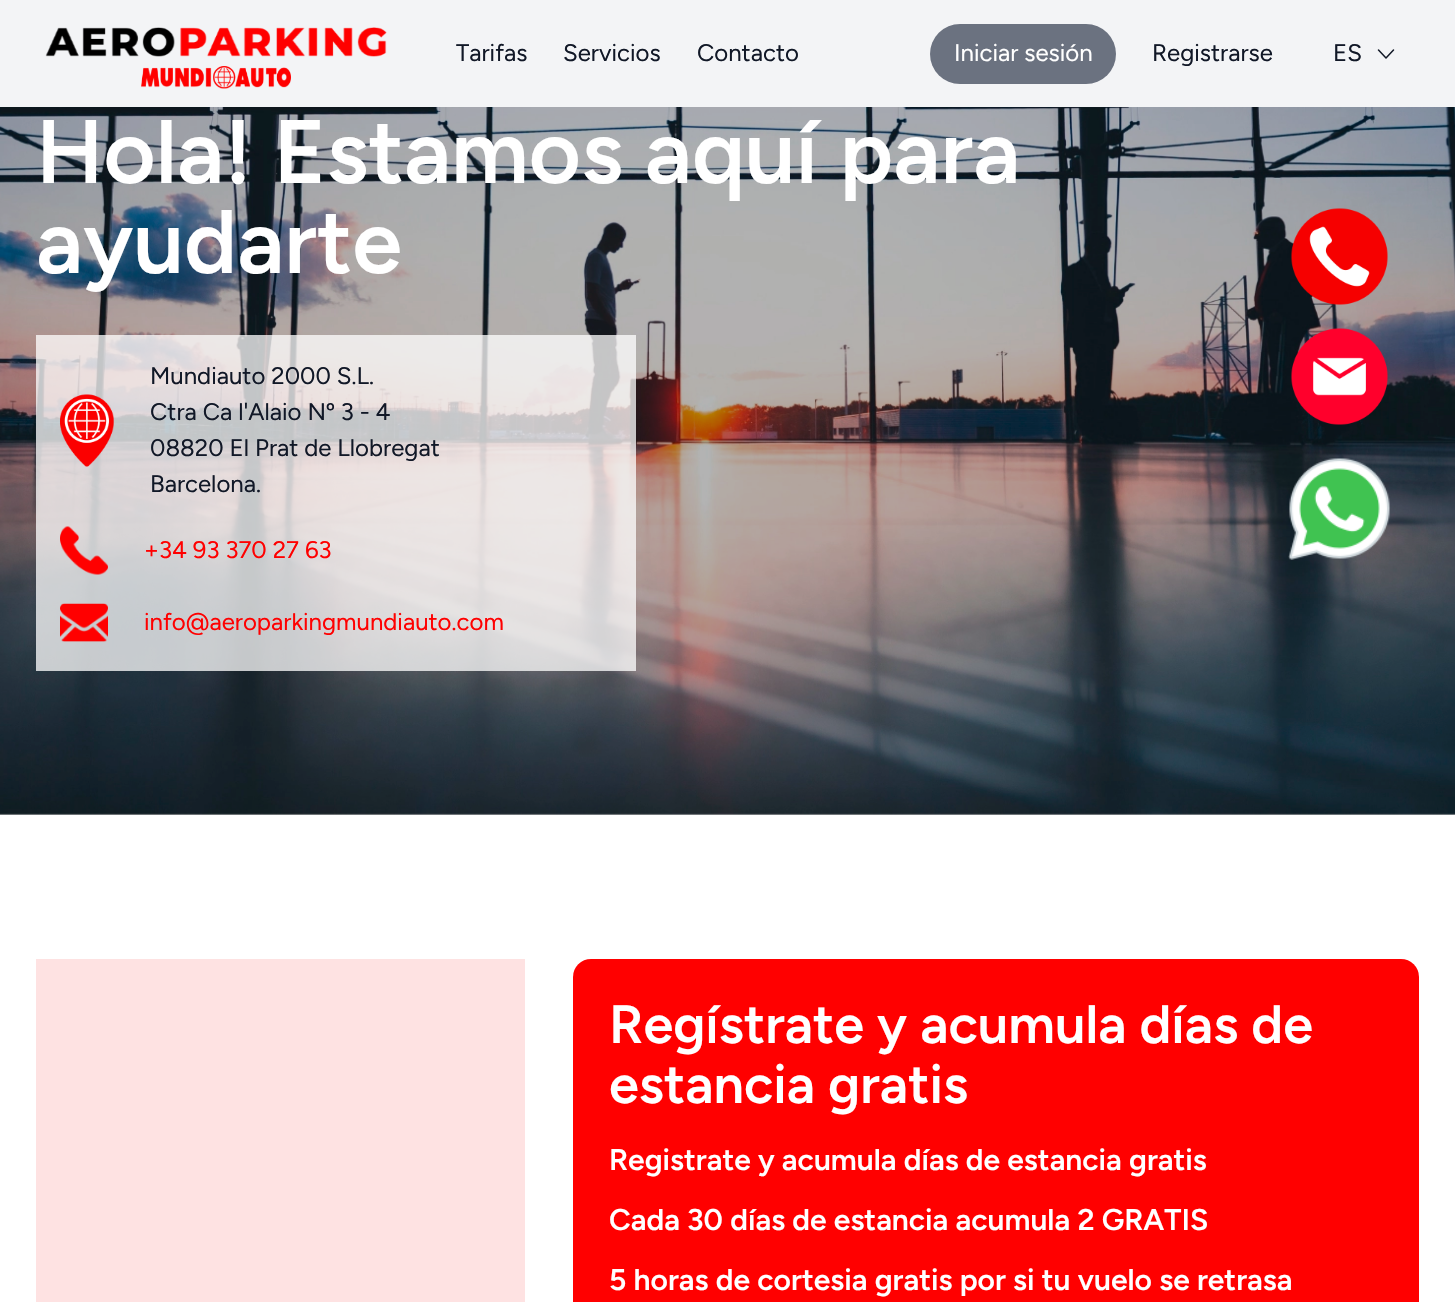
void draw(SkCanvas* canvas) {
	SkPaint fill;
	fill.setAntiAlias(true);
	auto makeFont = [&](const char* family, int weight, float size, bool italic = false) {
		SkFontStyle style(weight, SkFontStyle::kNormal_Width,
			italic ? SkFontStyle::kItalic_Slant : SkFontStyle::kUpright_Slant);
		SkFont result(fontMgr->matchFamilyStyle(family, style), size);
		result.setSubpixel(true);
		return result;
	};
	auto text = [&](const char* s, float x, float y, const SkFont& font) {
		canvas->drawString(s, x, y, font, fill);
	};
	auto box = [&](float l, float t, float r, float b) {
		canvas->drawRect(SkRect::MakeLTRB(l, t, r, b), fill);
	};
	auto roundBox = [&](float l, float t, float r, float b, float radius) {
		canvas->drawRoundRect(SkRect::MakeLTRB(l, t, r, b), radius, radius, fill);
	};
	auto picture = [&](const char* path, float l, float t, float r, float b) {
		auto image = SkImages::DeferredFromEncodedData(SkData::MakeFromFileName(path));
		canvas->drawImageRect(image, SkRect::MakeLTRB(l, t, r, b), SkSamplingOptions());
	};
	canvas->clear(0xFFFFFFFF);
	fill.setColor(0xFFB3B3B3);
	box(0, 814, 1455, 815);
	fill.setColor(0xFFF3F4F6);
	box(0, 0, 1455, 107);
	picture("image0.png", 45, 27, 387, 57);
	picture("image1.png", 141, 66, 291, 89);
	fill.setColor(0xFF6B7280);
	roundBox(930, 24, 1116, 84, 30);
	fill.setStyle(SkPaint::kStroke_Style);
	fill.setStrokeWidth(1.5f);
	fill.setStrokeCap(SkPaint::kRound_Cap);
	fill.setStrokeJoin(SkPaint::kRound_Join);
	fill.setColor(0xFF111827);
	canvas->drawPath(SkPathBuilder().moveTo(1393.5f, 50).lineTo(1386, 58).lineTo(1378.5f, 50).detach(), fill);
	picture("image2.png", 0, 107, 1455, 815);
	fill.setStyle(SkPaint::kFill_Style);
	fill.setColor(0xBFFFFFFF);
	box(36, 335, 636, 671);
	picture("image3.png", 60, 394, 114, 467);
	picture("image4.png", 60, 526, 108, 575);
	picture("image5.png", 60, 603, 108, 642);
	picture("image6.png", 1291, 208, 1388, 305);
	picture("image7.png", 1291, 328, 1388, 425);
	picture("image8.png", 1288, 458, 1390, 560);
	fill.setColor(0xFFFEE2E2);
	box(36, 959, 525, 1302);
	fill.setColor(0xFFFF0000);
	roundBox(573, 959, 1419, 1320, 18);
	auto font1 = makeFont("Figtree", 300, 24);
	fill.setColor(0xFF111827);
	text("Tarifas", 456, 61, font1);
	text("Servicios", 563, 61, font1);
	text("Contacto", 697, 61, font1);
	fill.setColor(0xFFFFFFFF);
	text("Iniciar sesión", 954, 61, font1);
	fill.setColor(0xFF111827);
	text("Registrarse", 1152, 61, font1);
	text("ES", 1333, 61, font1);
	auto font2 = makeFont("Figtree", 600, 90);
	fill.setColor(0xFFFFFFFF);
	text("Hola! Estamos aquí para", 36, 183, font2);
	text("ayudarte", 36, 273, font2);
	fill.setColor(0xFF111827);
	text("Mundiauto 2000 S.L.", 150, 384, font1);
	text("Ctra Ca l'Alaio Nº 3 - 4", 150, 420, font1);
	text("08820 El Prat de Llobregat", 150, 456, font1);
	text("Barcelona.", 150, 492, font1);
	fill.setColor(0xFFFF0000);
	text("+34 93 370 27 63", 144, 558, font1);
	text("info@aeroparkingmundiauto.com", 144, 630, font1);
	auto font3 = makeFont("Figtree", 600, 54);
	fill.setColor(0xFFFFFFFF);
	text("Regístrate y acumula días de", 609, 1043, font3);
	text("estancia gratis", 609, 1103, font3);
	auto font4 = makeFont("Figtree", 600, 30);
	text("Registrate y acumula días de estancia gratis", 609, 1170, font4);
	text("Cada 30 días de estancia acumula 2 GRATIS", 609, 1230, font4);
	text("5 horas de cortesia gratis por si tu vuelo se retrasa", 609, 1290, font4);
}
